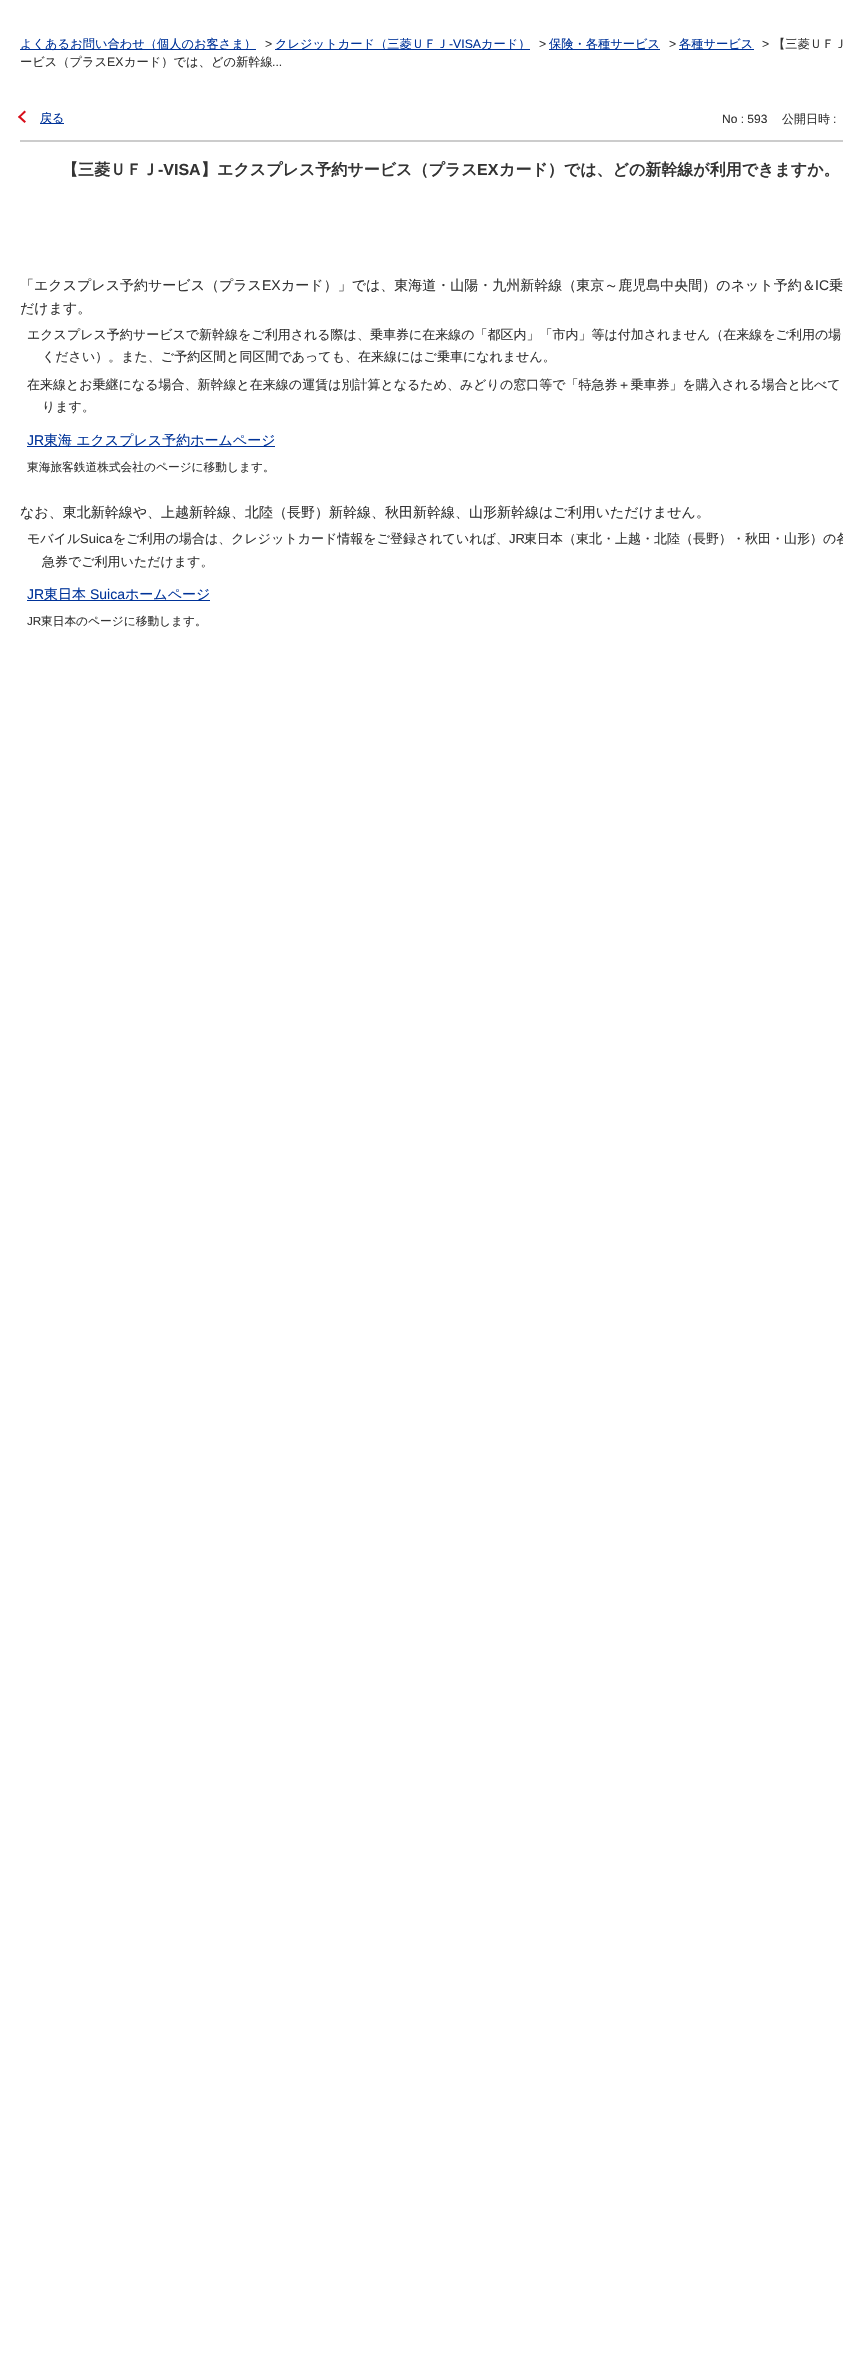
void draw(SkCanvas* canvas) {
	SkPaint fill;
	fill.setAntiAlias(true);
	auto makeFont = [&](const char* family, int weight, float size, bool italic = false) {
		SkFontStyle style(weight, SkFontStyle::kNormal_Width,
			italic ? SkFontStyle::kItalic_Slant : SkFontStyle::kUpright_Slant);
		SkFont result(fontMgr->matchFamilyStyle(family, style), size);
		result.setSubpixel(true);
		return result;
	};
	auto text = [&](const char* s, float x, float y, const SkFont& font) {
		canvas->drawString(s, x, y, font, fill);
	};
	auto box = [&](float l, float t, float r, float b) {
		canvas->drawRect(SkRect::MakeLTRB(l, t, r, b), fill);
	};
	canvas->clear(0xFFFFFFFF);
	fill.setColor(0xFF003399);
	box(20, 49, 256, 50);
	box(275, 49, 530, 50);
	box(549, 49, 660, 50);
	box(679, 49, 754, 50);
	fill.setColor(0xFFCCCCCC);
	box(20, 140, 843, 142);
	fill.setColor(0xFFD80C19);
	canvas->drawPath(SkPathBuilder().moveTo(18, 117).lineTo(24.5f, 110.5f).lineTo(26, 112).lineTo(19.5f, 118).close().detach(), fill);
	canvas->drawPath(SkPathBuilder().moveTo(18, 117).lineTo(19.5f, 115.5f).lineTo(26, 121.5f).lineTo(24.5f, 123).close().detach(), fill);
	fill.setColor(0xFF003399);
	box(40, 123, 64, 124);
	box(27, 446, 275, 447);
	box(27, 600, 210, 601);
	auto font1 = makeFont("WenQuanYi Zen Hei", 500, 12.25f);
	text("よくあるお問い合わせ（個人のお客さま）", 20, 48, font1);
	auto font2 = makeFont("Liberation Sans", 400, 12.25f);
	fill.setColor(0xFF333333);
	text(">", 265, 48, font2);
	fill.setColor(0xFF003399);
	text("クレジットカード（三菱ＵＦＪ", 275, 48, font1);
	text("-VISA", 449, 48, font2);
	text("カード）", 481, 48, font1);
	fill.setColor(0xFF333333);
	text(">", 539, 48, font2);
	fill.setColor(0xFF003399);
	text("保険・各種サービス", 549, 48, font1);
	fill.setColor(0xFF333333);
	text(">", 669, 48, font2);
	fill.setColor(0xFF003399);
	text("各種サービス", 679, 48, font1);
	fill.setColor(0xFF333333);
	text(">", 762, 48, font2);
	text("【三菱ＵＦＪ", 773, 48, font1);
	text("ービス（プラス", 20, 66, font1);
	text("EX", 107, 66, font2);
	text("カード）では、どの新幹線", 124, 66, font1);
	text("...", 272, 66, font2);
	auto font3 = makeFont("WenQuanYi Zen Hei", 500, 12);
	fill.setColor(0xFF003399);
	text("戻る", 40, 122, font3);
	auto font4 = makeFont("Liberation Sans", 400, 12);
	fill.setColor(0xFF333333);
	text("No : 593", 722, 123, font4);
	text("公開日時", 782, 123, font3);
	text(":", 833, 123, font4);
	auto font5 = makeFont("WenQuanYi Zen Hei", 700, 16);
	text("【三菱ＵＦＪ", 62, 175, font5);
	auto font6 = makeFont("Liberation Sans", 700, 16);
	text("-VISA", 158, 175, font6);
	text("】エクスプレス予約サービス（プラス", 201, 175, font5);
	text("EX", 477, 175, font6);
	text("カード）では、どの新幹線が利用できますか。", 499, 175, font5);
	auto font7 = makeFont("WenQuanYi Zen Hei", 500, 14);
	text("「エクスプレス予約サービス（プラス", 20, 290, font7);
	auto font8 = makeFont("Liberation Sans", 400, 14);
	text("EX", 262, 290, font8);
	text("カード）」では、東海道・山陽・九州新幹線（東京～鹿児島中央間）のネット予約＆", 281, 290, font7);
	text("IC", 815, 290, font8);
	text("乗", 829, 290, font7);
	text("だけます。", 20, 313, font7);
	auto font9 = makeFont("WenQuanYi Zen Hei", 500, 13);
	text("エクスプレス予約サービスで新幹線をご利用される際は、乗車券に在来線の「都区内」「市内」等は付加されません（在来線をご利用の場", 27, 339, font9);
	text("ください）。また、ご予約区間と同区間であっても、在来線にはご乗車になれません。", 42, 361, font9);
	text("在来線とお乗継になる場合、新幹線と在来線の運賃は別計算となるため、みどりの窓口等で「特急券＋乗車券」を購入される場合と比べて", 27, 389, font9);
	text("ります。", 42, 411, font9);
	fill.setColor(0xFF003399);
	text("JR", 27, 445, font8);
	text("東海 エクスプレス予約ホームページ", 44, 445, font7);
	auto font10 = makeFont("WenQuanYi Zen Hei", 500, 11.7f);
	fill.setColor(0xFF333333);
	text("東海旅客鉄道株式会社のページに移動します。", 27, 471, font10);
	text("なお、東北新幹線や、上越新幹線、北陸（長野）新幹線、秋田新幹線、山形新幹線はご利用いただけません。", 20, 517, font7);
	text("モバイル", 27, 543, font9);
	auto font11 = makeFont("Liberation Sans", 400, 13);
	text("Suica", 80, 543, font11);
	text("をご利用の場合は、クレジットカード情報をご登録されていれば、", 113, 543, font9);
	text("JR", 509, 543, font11);
	text("東日本（東北・上越・北陸（長野）・秋田・山形）の各", 524, 543, font9);
	text("急券でご利用いただけます。", 42, 566, font9);
	fill.setColor(0xFF003399);
	text("JR", 27, 599, font8);
	text("東日本", 44, 599, font7);
	text("Suica", 90, 599, font8);
	text("ホームページ", 125, 599, font7);
	auto font12 = makeFont("Liberation Sans", 400, 11.7f);
	fill.setColor(0xFF333333);
	text("JR", 27, 625, font12);
	text("東日本のページに移動します。", 41, 625, font10);
}
